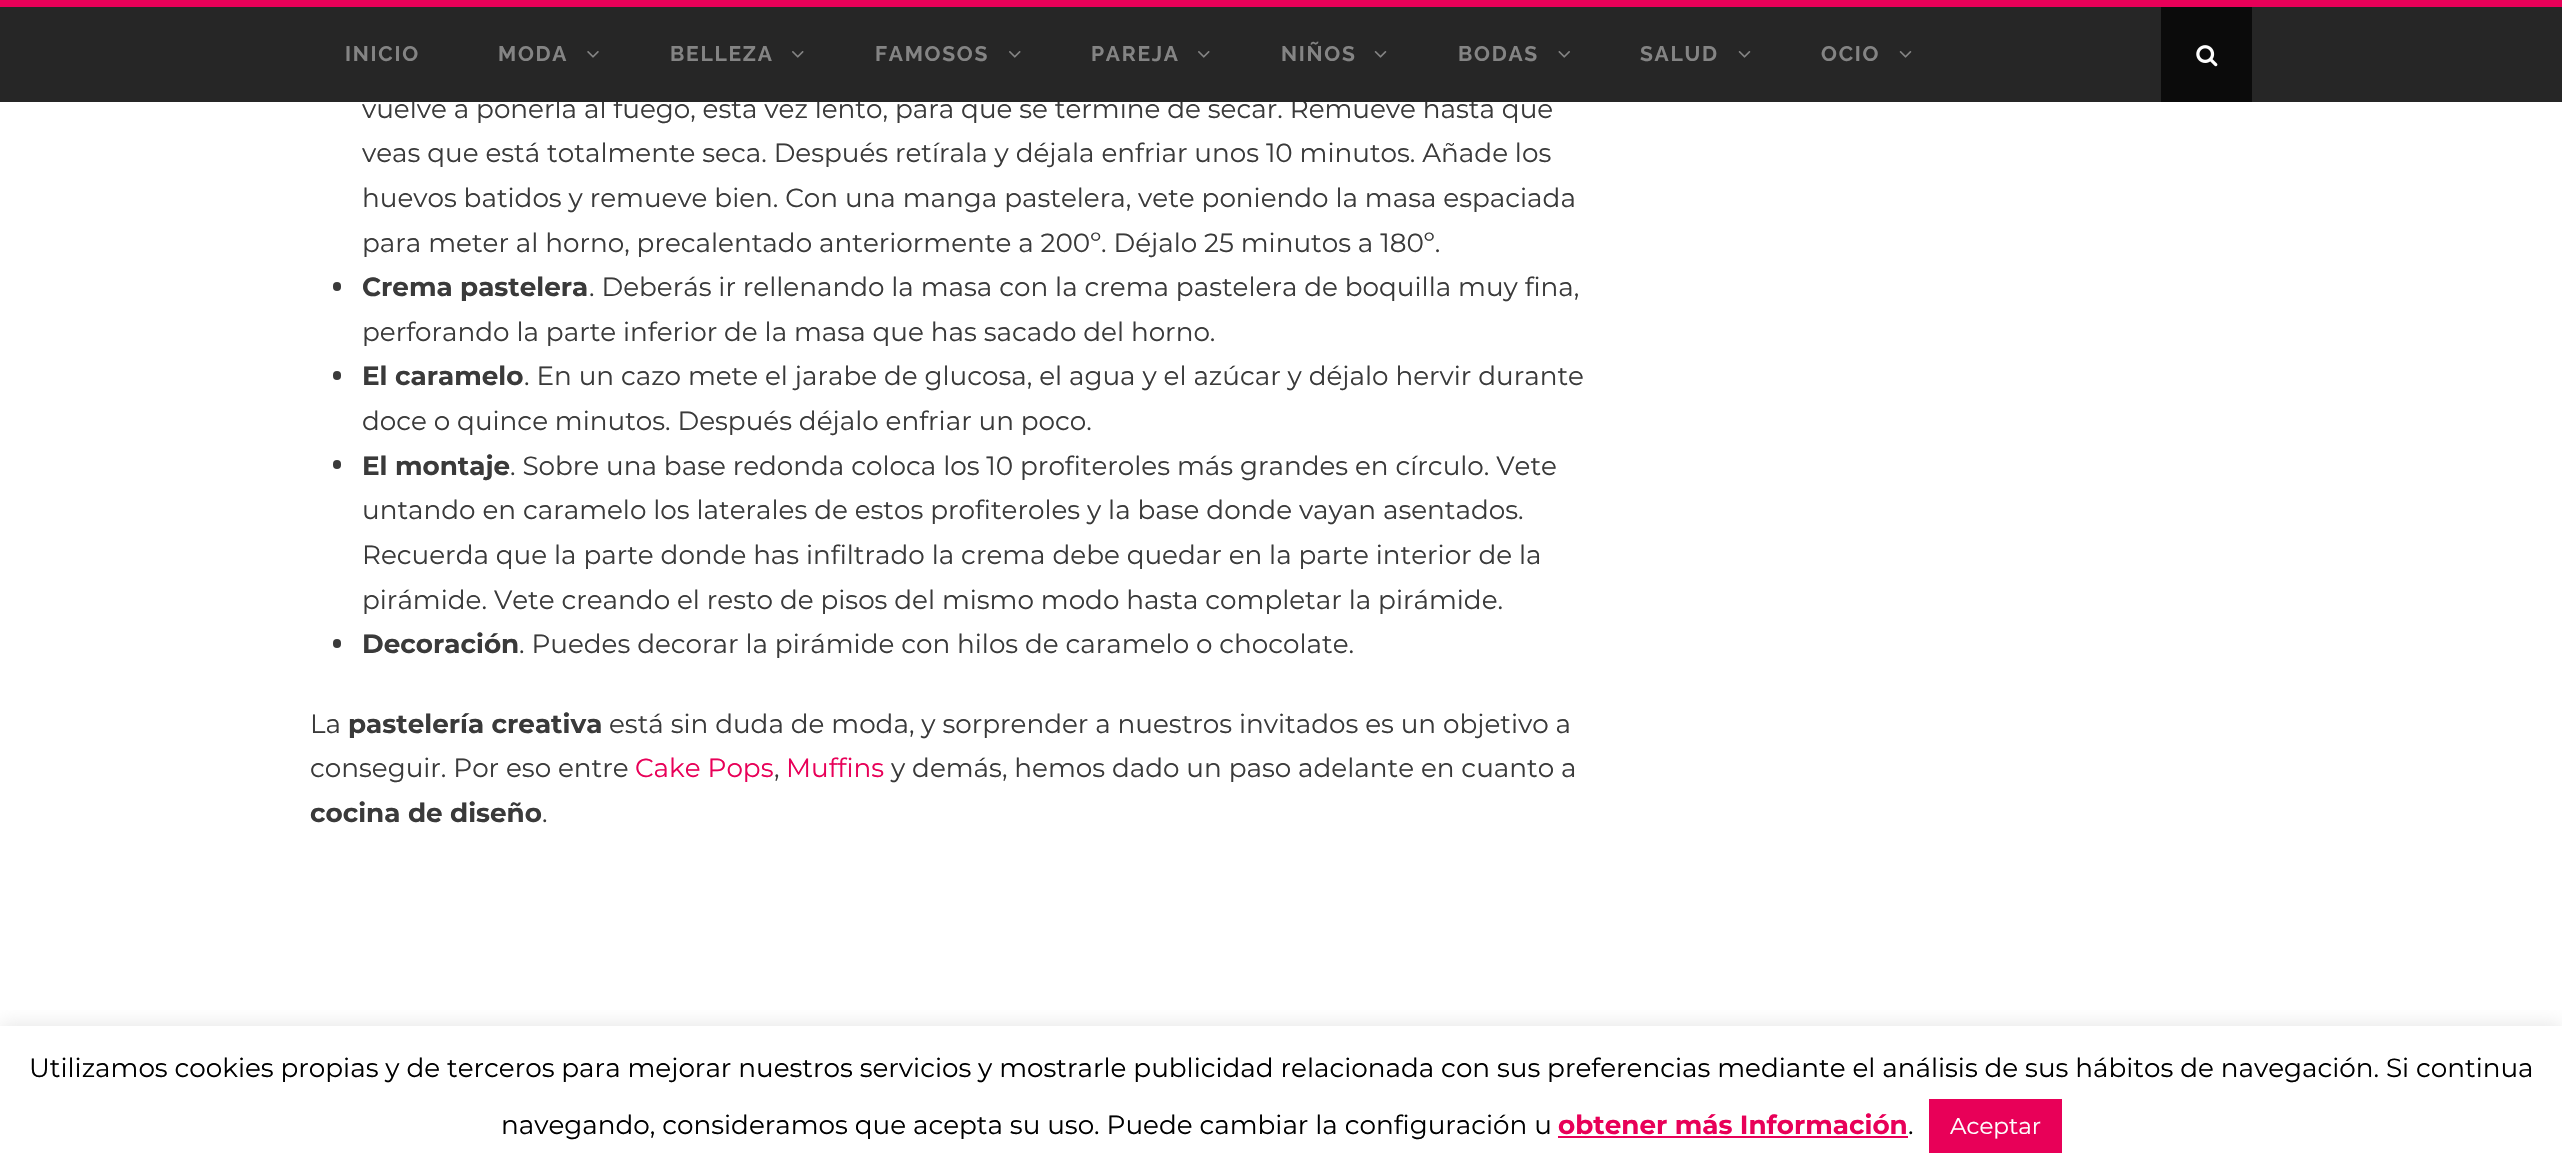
void draw(SkCanvas* canvas) {
	SkPaint fill;
	fill.setAntiAlias(true);
	auto makeFont = [&](const char* family, int weight, float size, bool italic = false) {
		SkFontStyle style(weight, SkFontStyle::kNormal_Width,
			italic ? SkFontStyle::kItalic_Slant : SkFontStyle::kUpright_Slant);
		SkFont result(fontMgr->matchFamilyStyle(family, style), size);
		result.setSubpixel(true);
		return result;
	};
	auto text = [&](const char* s, float x, float y, const SkFont& font) {
		canvas->drawString(s, x, y, font, fill);
	};
	auto spacedText = [&](const char* s, float x, float y, const SkFont& font, const SkPaint& ink, float letter, float word) {
		std::vector<SkGlyphID> glyphs(font.countText(s, strlen(s), SkTextEncoding::kUTF8));
		std::vector<float> xs(glyphs.size());
		font.textToGlyphs(s, strlen(s), SkTextEncoding::kUTF8, glyphs);
		font.getXPos(glyphs, xs, x);
		float extra = 0;
		for (size_t i = 0; i < glyphs.size(); i++) {
			xs[i] += extra;
			extra += letter + word * (glyphs[i] == font.unicharToGlyph(' '));
		}
		canvas->drawTextBlob(SkTextBlob::MakeFromPosHGlyphs(glyphs, xs, y, font), 0, 0, ink);
	};
	auto box = [&](float l, float t, float r, float b) {
		canvas->drawRect(SkRect::MakeLTRB(l, t, r, b), fill);
	};
	auto roundBox = [&](float l, float t, float r, float b, float radius) {
		canvas->drawRoundRect(SkRect::MakeLTRB(l, t, r, b), radius, radius, fill);
	};
	auto picture = [&](const char* path, float l, float t, float r, float b) {
		auto image = SkImages::DeferredFromEncodedData(SkData::MakeFromFileName(path));
		canvas->drawImageRect(image, SkRect::MakeLTRB(l, t, r, b), SkSamplingOptions());
	};
	canvas->clear(0xFFFFFFFF);
	fill.setColor(0xFFE80058);
	box(0, 0, 2562, 7);
	fill.setColor(0xFF3A3A3A);
	roundBox(333, 282, 341, 291, 4);
	roundBox(333, 371, 341, 380, 4);
	roundBox(333, 460, 341, 469, 4);
	roundBox(333, 639, 341, 648, 4);
	canvas->save();
	canvas->clipRect(SkRect::MakeLTRB(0, 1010, 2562, 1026));
	fill.setColor(0x4DACABAB);
	fill.setMaskFilter(SkMaskFilter::MakeBlur(kNormal_SkBlurStyle, 9));
	canvas->drawRect(SkRect::MakeLTRB(0, 1024, 2562, 1173), fill);
	fill.setMaskFilter(nullptr);
	canvas->restore();
	fill.setColor(0xFFE80058);
	box(1558, 1136, 1908, 1138);
	box(1929, 1099, 2062, 1153);
	auto font1 = makeFont("Montserrat", 400, 26.25f);
	fill.setColor(0xFF3A3A3A);
	text("vuelve a ponerla al fuego, esta vez lento, para que se termine de secar. Remueve hasta que", 362, 118, font1);
	fill.setColor(0xFF262626);
	box(0, 7, 2562, 102);
	picture("image2.png", 1899, 51, 1912, 58);
	auto font2 = makeFont("Raleway", 700, 21);
	fill.setColor(0xFF848484);
	spacedText("OCIO", 1821, 61, font2, fill, 1.75f, 0);
	picture("image2.png", 1738, 51, 1751, 58);
	spacedText("SALUD", 1640, 61, font2, fill, 1.75f, 0);
	picture("image3.png", 1558, 51, 1570, 58);
	spacedText("BODAS", 1458, 61, font2, fill, 1.75f, 0);
	picture("image2.png", 1374, 51, 1387, 58);
	spacedText("NIÑOS", 1281, 61, font2, fill, 1.75f, 0);
	picture("image1.png", 1198, 51, 1210, 58);
	spacedText("PAREJA", 1091, 61, font2, fill, 1.75f, 0);
	picture("image1.png", 1009, 51, 1021, 58);
	spacedText("FAMOSOS", 875, 61, font2, fill, 1.75f, 0);
	picture("image1.png", 792, 51, 804, 58);
	spacedText("BELLEZA", 670, 61, font2, fill, 1.75f, 0);
	picture("image0.png", 587, 51, 599, 58);
	spacedText("MODA", 498, 61, font2, fill, 1.75f, 0);
	spacedText("INICIO", 345, 61, font2, fill, 1.75f, 0);
	fill.setColor(0xFF0B0B0B);
	box(2161, 7, 2252, 102);
	picture("image4.png", 2196, 45, 2218, 67);
	fill.setColor(0xFF3A3A3A);
	text("veas que está totalmente seca. Después retírala y déjala enfriar unos 10 minutos. Añade los", 362, 162, font1);
	text("huevos batidos y remueve bien. Con una manga pastelera, vete poniendo la masa espaciada", 362, 207, font1);
	text("para meter al horno, precalentado anteriormente a 200º. Déjalo 25 minutos a 180º.", 362, 252, font1);
	auto font3 = makeFont("Montserrat", 700, 26.25f);
	text("Crema pastelera", 362, 296, font3);
	text(". Deberás ir rellenando la masa con la crema pastelera de boquilla muy fina,", 589, 296, font1);
	text("perforando la parte inferior de la masa que has sacado del horno.", 362, 341, font1);
	text("El caramelo", 362, 385, font3);
	text(". En un cazo mete el jarabe de glucosa, el agua y el azúcar y déjalo hervir durante", 524, 385, font1);
	text("doce o quince minutos. Después déjalo enfriar un poco.", 362, 430, font1);
	text("El montaje", 362, 475, font3);
	text(". Sobre una base redonda coloca los 10 profiteroles más grandes en círculo. Vete", 510, 475, font1);
	text("untando en caramelo los laterales de estos profiteroles y la base donde vayan asentados.", 362, 519, font1);
	text("Recuerda que la parte donde has infiltrado la crema debe quedar en la parte interior de la", 362, 564, font1);
	text("pirámide. Vete creando el resto de pisos del mismo modo hasta completar la pirámide.", 362, 609, font1);
	text("Decoración", 362, 653, font3);
	text(". Puedes decorar la pirámide con hilos de caramelo o chocolate.", 519, 653, font1);
	text("La", 310, 733, font1);
	text("pastelería creativa", 348, 733, font3);
	text("está sin duda de moda, y sorprender a nuestros invitados es un objetivo a", 609, 733, font1);
	text("conseguir. Por eso entre", 310, 777, font1);
	fill.setColor(0xFFE80058);
	text("Cake Pops", 635, 777, font1);
	fill.setColor(0xFF3A3A3A);
	text(",", 774, 777, font1);
	fill.setColor(0xFFE80058);
	text("Muffins", 786, 777, font1);
	fill.setColor(0xFF3A3A3A);
	text("y demás, hemos dado un paso adelante en cuanto a", 891, 777, font1);
	text("cocina de diseño", 310, 822, font3);
	text(".", 542, 822, font1);
	fill.setColor(0xFF000000);
	text("Utilizamos cookies propias y de terceros para mejorar nuestros servicios y mostrarle publicidad relacionada con sus preferencias mediante el análisis de sus hábitos de navegación. Si continua", 29, 1077, font1);
	text("navegando, consideramos que acepta su uso. Puede cambiar la configuración u", 501, 1134, font1);
	fill.setColor(0xFFE80058);
	text("obtener más Información", 1558, 1134, font3);
	fill.setColor(0xFF000000);
	text(".", 1908, 1134, font1);
	auto font4 = makeFont("Montserrat", 400, 23);
	fill.setColor(0xFFFFFFFF);
	text("Aceptar", 1950, 1134, font4);
}
